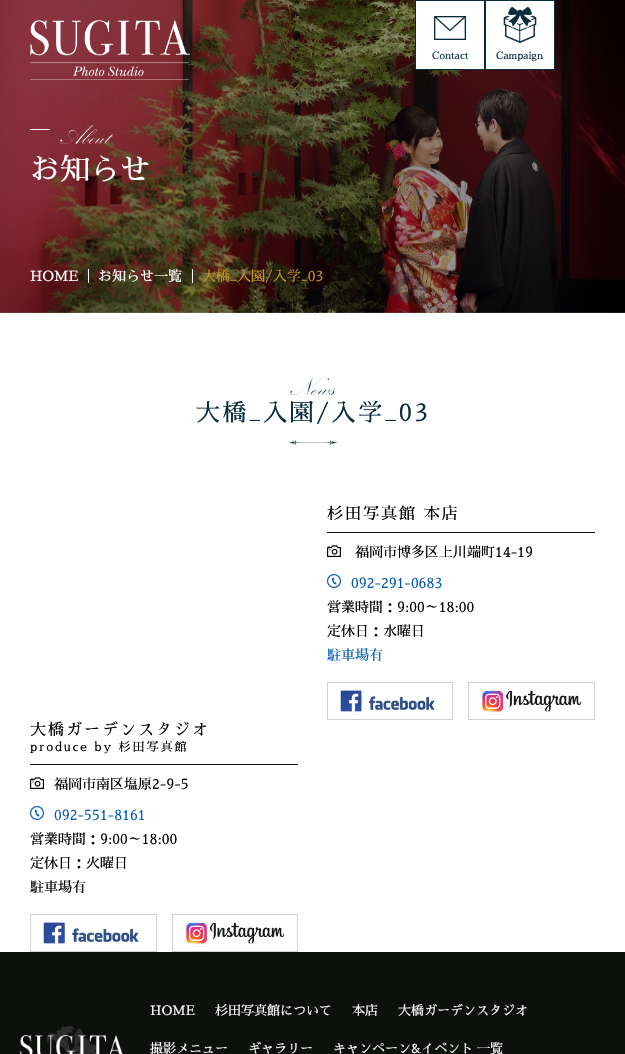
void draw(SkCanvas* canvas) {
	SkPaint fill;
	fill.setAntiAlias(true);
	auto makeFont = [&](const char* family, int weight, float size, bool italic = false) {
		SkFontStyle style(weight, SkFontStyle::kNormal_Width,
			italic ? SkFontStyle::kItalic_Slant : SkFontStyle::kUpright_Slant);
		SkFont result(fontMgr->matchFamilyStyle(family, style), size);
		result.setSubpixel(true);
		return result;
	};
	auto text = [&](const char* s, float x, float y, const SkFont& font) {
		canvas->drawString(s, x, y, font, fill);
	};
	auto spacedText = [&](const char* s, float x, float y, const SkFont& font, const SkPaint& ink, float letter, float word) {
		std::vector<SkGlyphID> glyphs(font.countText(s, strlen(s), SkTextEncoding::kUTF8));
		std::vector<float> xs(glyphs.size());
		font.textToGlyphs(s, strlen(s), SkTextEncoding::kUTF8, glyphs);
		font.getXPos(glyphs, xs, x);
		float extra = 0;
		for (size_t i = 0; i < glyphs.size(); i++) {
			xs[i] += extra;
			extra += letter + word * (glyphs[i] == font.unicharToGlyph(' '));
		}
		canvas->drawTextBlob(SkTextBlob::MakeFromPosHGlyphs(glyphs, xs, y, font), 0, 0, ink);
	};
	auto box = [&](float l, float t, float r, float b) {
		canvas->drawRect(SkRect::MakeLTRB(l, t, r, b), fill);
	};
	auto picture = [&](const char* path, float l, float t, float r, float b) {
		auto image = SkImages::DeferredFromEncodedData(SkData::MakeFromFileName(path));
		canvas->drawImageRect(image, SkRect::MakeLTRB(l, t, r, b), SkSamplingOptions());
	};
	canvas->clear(0xFFFFFFFF);
	picture("image3.png", 0, 0, 625, 313);
	fill.setColor(0xFFFFFFFF);
	canvas->drawRect(SkRect::MakeLTRB(415.5f, 0.5f, 484.5f, 69.5f), fill);
	fill.setStyle(SkPaint::kStroke_Style);
	fill.setStrokeWidth(1);
	fill.setColor(0xFF082D40);
	canvas->drawRect(SkRect::MakeLTRB(415.5f, 0.5f, 484.5f, 69.5f), fill);
	picture("image0.png", 434, 16, 467, 40);
	fill.setStyle(SkPaint::kFill_Style);
	fill.setColor(0xFFFFFFFF);
	canvas->drawRect(SkRect::MakeLTRB(485.5f, 0.5f, 554.5f, 69.5f), fill);
	fill.setStyle(SkPaint::kStroke_Style);
	fill.setColor(0xFF082D40);
	canvas->drawRect(SkRect::MakeLTRB(485.5f, 0.5f, 554.5f, 69.5f), fill);
	picture("image1.png", 503, 7, 537, 43);
	picture("image2.png", 30, 20, 190, 80);
	fill.setStyle(SkPaint::kFill_Style);
	fill.setColor(0xFFFFFFFF);
	box(30, 129, 50, 130);
	picture("image4.png", 60, 125, 113, 144);
	box(88, 269, 89, 283);
	box(192, 269, 193, 283);
	picture("image5.png", 290, 377, 335, 395);
	picture("image6.png", 288, 440, 338, 445);
	fill.setColor(0xFF0E100E);
	box(327, 532, 595, 533);
	picture("image7.png", 327, 545, 341, 557);
	picture("image8.png", 327, 574, 341, 588);
	fill.setStyle(SkPaint::kStroke_Style);
	fill.setColor(0xFFD1D1D1);
	canvas->drawRect(SkRect::MakeLTRB(327.5f, 682.5f, 452.5f, 719.5f), fill);
	picture("image9.png", 340, 690, 436, 713);
	canvas->drawRect(SkRect::MakeLTRB(468.5f, 682.5f, 594.5f, 719.5f), fill);
	picture("image10.png", 481, 690, 582, 713);
	fill.setStyle(SkPaint::kFill_Style);
	fill.setColor(0xFF0E100E);
	box(30, 764, 298, 765);
	picture("image7.png", 30, 777, 44, 789);
	picture("image8.png", 30, 806, 44, 820);
	fill.setStyle(SkPaint::kStroke_Style);
	fill.setColor(0xFFD1D1D1);
	canvas->drawRect(SkRect::MakeLTRB(30.5f, 914.5f, 156.5f, 951.5f), fill);
	picture("image11.png", 43, 922, 140, 945);
	canvas->drawRect(SkRect::MakeLTRB(172.5f, 914.5f, 297.5f, 951.5f), fill);
	picture("image12.png", 184, 922, 285, 945);
	fill.setStyle(SkPaint::kFill_Style);
	fill.setColor(0xFF0E100E);
	box(0, 952, 625, 1054);
	picture("image14.png", 20, 1035, 123, 1054);
	picture("image13.png", 46, 1026, 97, 1054);
	auto font1 = makeFont("Sawarabi Mincho", 400, 10);
	fill.setColor(0xFF082D40);
	text("Contact", 432, 59, font1);
	text("Campaign", 496, 59, font1);
	auto font2 = makeFont("Sawarabi Mincho", 400, 30);
	fill.setColor(0xFFFFFFFF);
	text("お知らせ", 30, 180, font2);
	auto font3 = makeFont("Sawarabi Mincho", 400, 14);
	text("HOME", 30, 281, font3);
	text("お知らせ一覧", 98, 281, font3);
	fill.setColor(0xFFC2982B);
	text("大橋_入園/入学_03", 202, 281, font3);
	auto font4 = makeFont("Sawarabi Mincho", 400, 24);
	fill.setColor(0xFF082D40);
	spacedText("大橋_入園/入学_03", 196, 421, font4, fill, 2.4f, 0);
	auto font5 = makeFont("Sawarabi Mincho", 400, 16);
	fill.setColor(0xFF000000);
	spacedText("杉田写真館 本店", 327, 519, font5, fill, 2, 0);
	text("福岡市博多区上川端町14-19", 355, 557, font3);
	fill.setColor(0xFF0059B2);
	text("092-291-0683", 351, 588, font3);
	fill.setColor(0xFF000000);
	text("営業時間：9:00～18:00", 327, 612, font3);
	text("定休日：水曜日", 327, 636, font3);
	fill.setColor(0xFF0059B2);
	text("駐車場有", 327, 660, font3);
	fill.setColor(0xFF000000);
	spacedText("大橋ガーデンスタジオ", 30, 735, font5, fill, 2, 0);
	auto font6 = makeFont("Sawarabi Mincho", 400, 12);
	spacedText("produce by 杉田写真館", 30, 751, font6, fill, 2, 0);
	text("福岡市南区塩原2-9-5", 54, 789, font3);
	fill.setColor(0xFF0059B2);
	text("092-551-8161", 54, 820, font3);
	fill.setColor(0xFF000000);
	text("営業時間：9:00～18:00", 30, 844, font3);
	text("定休日：火曜日", 30, 868, font3);
	text("駐車場有", 30, 892, font3);
	auto font7 = makeFont("Sawarabi Mincho", 400, 13);
	fill.setColor(0xFFFFFFFF);
	text("HOME", 150, 1015, font7);
	text("杉田写真館について", 215, 1015, font7);
	text("本店", 352, 1015, font7);
	text("大橋ガーデンスタジオ", 398, 1015, font7);
	text("撮影メニュー", 150, 1053, font7);
	text("ギャラリー", 248, 1053, font7);
	text("キャンペーン&イベント 一覧", 333, 1053, font7);
}
